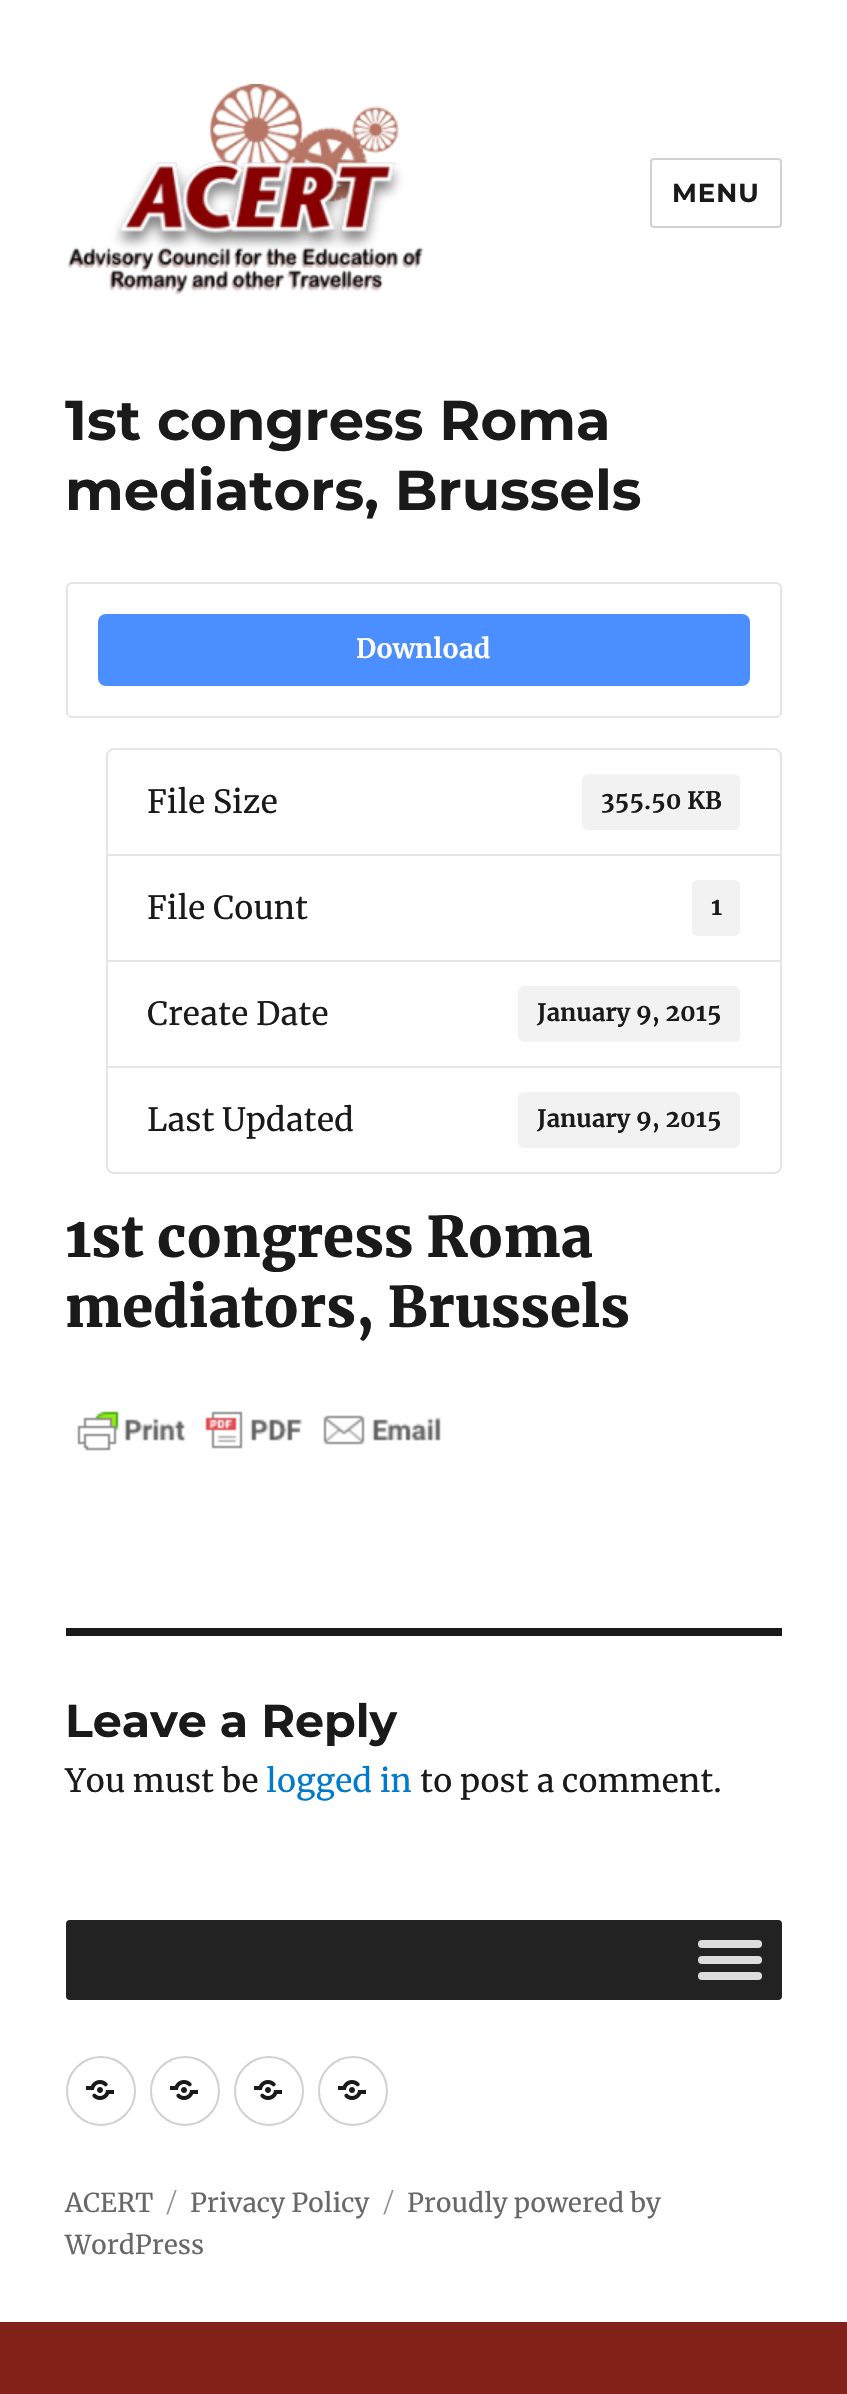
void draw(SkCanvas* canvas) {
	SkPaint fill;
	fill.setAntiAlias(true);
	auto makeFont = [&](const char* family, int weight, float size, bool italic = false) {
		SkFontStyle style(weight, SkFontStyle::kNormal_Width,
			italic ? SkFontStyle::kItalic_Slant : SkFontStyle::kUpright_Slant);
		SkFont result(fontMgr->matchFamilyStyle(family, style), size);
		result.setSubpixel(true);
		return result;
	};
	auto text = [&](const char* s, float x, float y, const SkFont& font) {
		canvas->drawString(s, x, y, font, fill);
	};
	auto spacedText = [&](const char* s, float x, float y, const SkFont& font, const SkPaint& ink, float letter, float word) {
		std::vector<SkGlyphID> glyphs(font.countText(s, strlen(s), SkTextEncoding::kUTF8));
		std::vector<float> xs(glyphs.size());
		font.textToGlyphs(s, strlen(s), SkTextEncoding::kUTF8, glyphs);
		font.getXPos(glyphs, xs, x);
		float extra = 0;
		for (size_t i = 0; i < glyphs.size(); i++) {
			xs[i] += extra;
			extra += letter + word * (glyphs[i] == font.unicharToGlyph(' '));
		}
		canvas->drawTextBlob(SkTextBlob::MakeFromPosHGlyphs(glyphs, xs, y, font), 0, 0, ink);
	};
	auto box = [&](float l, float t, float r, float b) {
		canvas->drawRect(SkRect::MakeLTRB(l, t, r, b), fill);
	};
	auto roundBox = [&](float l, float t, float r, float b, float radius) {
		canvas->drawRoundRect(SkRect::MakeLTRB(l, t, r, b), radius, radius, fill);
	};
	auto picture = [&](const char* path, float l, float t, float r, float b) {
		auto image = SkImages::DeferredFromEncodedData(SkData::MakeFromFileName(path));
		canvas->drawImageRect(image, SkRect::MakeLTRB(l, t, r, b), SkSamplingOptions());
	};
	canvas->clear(0xFF82201A);
	fill.setColor(0xFFFFFFFF);
	box(0, 0, 847, 2322);
	picture("image0.png", 67, 84, 424, 295);
	fill.setStyle(SkPaint::kStroke_Style);
	fill.setStrokeWidth(2);
	fill.setColor(0xFFD1D1D1);
	canvas->drawRoundRect(SkRect::MakeLTRB(651, 159, 781, 227), 3, 3, fill);
	fill.setColor(0xFFE5E5E5);
	canvas->drawRoundRect(SkRect::MakeLTRB(67, 583, 781, 717), 5, 5, fill);
	fill.setStyle(SkPaint::kFill_Style);
	fill.setColor(0xFF4A8EFF);
	roundBox(98, 614, 750, 686, 8);
	fill.setStyle(SkPaint::kStroke_Style);
	fill.setColor(0xFFE5E5E5);
	canvas->drawPath(SkPathBuilder().moveTo(114, 749).lineTo(774, 749).cubicTo(778, 749, 781, 752, 781, 756).lineTo(781, 855).lineTo(107, 855).lineTo(107, 756).cubicTo(107, 752, 110, 749, 114, 749).close().detach(), fill);
	fill.setStyle(SkPaint::kFill_Style);
	fill.setColor(0xFFF2F2F2);
	roundBox(582, 774, 740, 830, 6);
	fill.setStyle(SkPaint::kStroke_Style);
	fill.setColor(0xFFE5E5E5);
	canvas->drawRect(SkRect::MakeLTRB(107, 855, 781, 961), fill);
	fill.setStyle(SkPaint::kFill_Style);
	fill.setColor(0xFFF2F2F2);
	roundBox(692, 880, 740, 936, 6);
	fill.setStyle(SkPaint::kStroke_Style);
	fill.setColor(0xFFE5E5E5);
	canvas->drawRect(SkRect::MakeLTRB(107, 961, 781, 1067), fill);
	fill.setStyle(SkPaint::kFill_Style);
	fill.setColor(0xFFF2F2F2);
	roundBox(518, 986, 740, 1042, 6);
	fill.setColor(0xFFFFFFFF);
	canvas->drawPath(SkPathBuilder().moveTo(107, 1067).lineTo(781, 1067).lineTo(781, 1166).cubicTo(781, 1170, 778, 1173, 774, 1173).lineTo(114, 1173).cubicTo(110, 1173, 107, 1170, 107, 1166).close().detach(), fill);
	fill.setStyle(SkPaint::kStroke_Style);
	fill.setColor(0xFFE5E5E5);
	canvas->drawPath(SkPathBuilder().moveTo(107, 1067).lineTo(781, 1067).lineTo(781, 1166).cubicTo(781, 1170, 778, 1173, 774, 1173).lineTo(114, 1173).cubicTo(110, 1173, 107, 1170, 107, 1166).close().detach(), fill);
	fill.setStyle(SkPaint::kFill_Style);
	fill.setColor(0xFFF2F2F2);
	roundBox(518, 1092, 740, 1148, 6);
	picture("image1.png", 77, 1411, 441, 1451);
	fill.setColor(0xFF1A1A1A);
	box(66, 1628, 782, 1636);
	fill.setColor(0xFF222222);
	roundBox(66, 1920, 782, 2000, 4);
	fill.setColor(0xFFDDDDDD);
	roundBox(698, 1940, 762, 1948, 4);
	roundBox(698, 1956, 762, 1964, 4);
	roundBox(698, 1972, 762, 1980, 4);
	fill.setStyle(SkPaint::kStroke_Style);
	fill.setColor(0xFFD1D1D1);
	canvas->drawCircle(101, 2091, 34, fill);
	picture("image2.png", 86, 2080, 114, 2100);
	canvas->drawCircle(185, 2091, 34, fill);
	picture("image2.png", 170, 2080, 198, 2100);
	canvas->drawCircle(269, 2091, 34, fill);
	picture("image2.png", 254, 2080, 282, 2100);
	canvas->drawCircle(353, 2091, 34, fill);
	picture("image2.png", 338, 2080, 366, 2100);
	auto font1 = makeFont("Montserrat", 100, 26);
	fill.setStyle(SkPaint::kFill_Style);
	fill.setColor(0xFF1A1A1A);
	spacedText("MENU", 672, 202, font1, fill, 1, 0);
	auto font2 = makeFont("Montserrat", 100, 56);
	text("1st congress Roma", 65, 440, font2);
	text("mediators, Brussels", 65, 510, font2);
	auto font3 = makeFont("Merriweather", 700, 26.5f);
	fill.setColor(0xFFFFFFFF);
	text("Download", 356, 658, font3);
	auto font4 = makeFont("Merriweather", 400, 32);
	fill.setColor(0xFF1A1A1A);
	text("File Size", 147, 813, font4);
	auto font5 = makeFont("Merriweather", 700, 24);
	text("355.50 KB", 601, 809, font5);
	text("File Count", 147, 919, font4);
	text("1", 711, 915, font5);
	text("Create Date", 147, 1025, font4);
	text("January 9, 2015", 537, 1021, font5);
	text("Last Updated", 147, 1131, font4);
	text("January 9, 2015", 537, 1127, font5);
	auto font6 = makeFont("Merriweather", 900, 56);
	text("1st congress Roma", 65, 1257, font6);
	text("mediators, Brussels", 65, 1327, font6);
	auto font7 = makeFont("Montserrat", 100, 46);
	text("Leave a Reply", 65, 1737, font7);
	text("You must be", 65, 1792, font4);
	fill.setColor(0xFF007ACC);
	text("logged in", 266, 1792, font4);
	fill.setColor(0xFF1A1A1A);
	text("to post a comment.", 420, 1792, font4);
	auto font8 = makeFont("Merriweather", 400, 26);
	fill.setColor(0xFF686868);
	text("ACERT", 65, 2212, font8);
	auto font9 = makeFont("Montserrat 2", 100, 26);
	fill.setColor(0xFF959595);
	text("/", 167, 2212, font9);
	fill.setColor(0xFF686868);
	text("Privacy Policy", 190, 2212, font8);
	fill.setColor(0xFF959595);
	text("/", 384, 2212, font9);
	fill.setColor(0xFF686868);
	text("Proudly powered by", 407, 2212, font8);
	text("WordPress", 65, 2254, font8);
}
